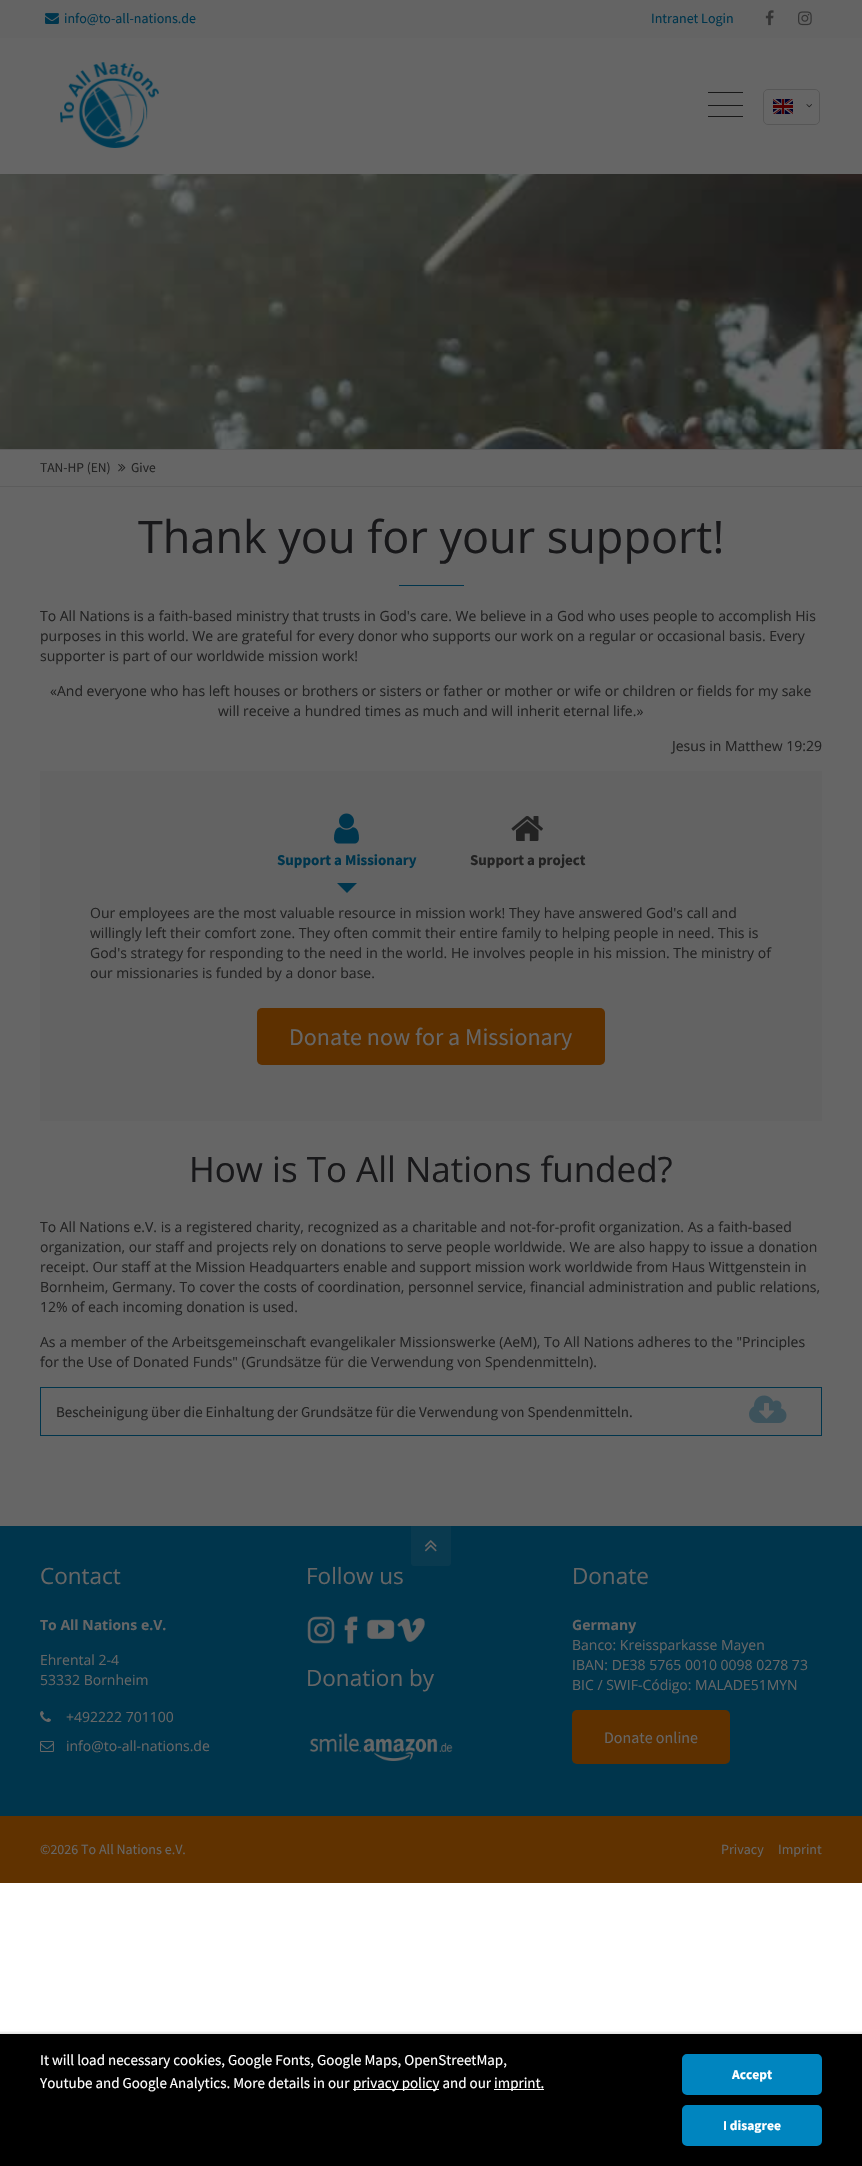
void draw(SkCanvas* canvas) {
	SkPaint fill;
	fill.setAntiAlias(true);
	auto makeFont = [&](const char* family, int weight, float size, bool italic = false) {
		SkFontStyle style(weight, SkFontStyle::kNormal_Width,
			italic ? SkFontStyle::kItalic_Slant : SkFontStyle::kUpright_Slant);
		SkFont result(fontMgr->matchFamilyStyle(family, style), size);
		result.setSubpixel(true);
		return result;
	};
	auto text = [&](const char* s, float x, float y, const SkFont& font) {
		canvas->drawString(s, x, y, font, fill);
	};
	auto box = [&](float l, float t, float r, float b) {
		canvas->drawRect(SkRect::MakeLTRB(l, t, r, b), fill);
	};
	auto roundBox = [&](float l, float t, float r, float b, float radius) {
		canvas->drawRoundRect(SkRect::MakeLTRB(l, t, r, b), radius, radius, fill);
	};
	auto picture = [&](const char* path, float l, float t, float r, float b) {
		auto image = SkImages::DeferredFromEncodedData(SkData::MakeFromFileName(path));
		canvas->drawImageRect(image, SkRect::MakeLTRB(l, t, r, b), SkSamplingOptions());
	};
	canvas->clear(0xFFFFFFFF);
	fill.setColor(0xFF666666);
	box(0, 38, 862, 1526);
	fill.setColor(0xFF646464);
	box(0, 0, 862, 38);
	picture("image0.png", 45, 13, 59, 24);
	picture("image1.png", 765, 10, 774, 26);
	picture("image2.png", 798, 11, 812, 26);
	picture("image3.png", 60, 62, 159, 148);
	fill.setColor(0xFF181818);
	box(708, 105, 743, 106);
	box(708, 92, 743, 93);
	box(708, 116, 743, 117);
	picture("image4.png", 773, 99, 793, 114);
	fill.setStyle(SkPaint::kStroke_Style);
	fill.setStrokeWidth(1);
	fill.setColor(0xFF565656);
	canvas->drawRoundRect(SkRect::MakeLTRB(763.5f, 89.5f, 819.5f, 124.5f), 4.5f, 4.5f, fill);
	picture("image5.png", 806, 104, 812, 108);
	picture("image6.png", 0, 174, 862, 449);
	fill.setStyle(SkPaint::kFill_Style);
	fill.setColor(0xFF5C5C5C);
	box(0, 449, 862, 450);
	box(0, 486, 862, 487);
	picture("image7.png", 118, 464, 126, 472);
	fill.setColor(0xFF00354C);
	box(399, 585, 464, 586);
	fill.setColor(0xFF636363);
	box(40, 771, 822, 1121);
	picture("image8.png", 334, 813, 359, 844);
	fill.setColor(0xFF00354C);
	canvas->drawPath(SkPathBuilder().moveTo(337, 883).lineTo(357, 883).lineTo(347, 893).close().detach(), fill);
	picture("image9.png", 511, 816, 543, 841);
	fill.setColor(0xFF5D3000);
	roundBox(257, 1008, 605, 1065, 5);
	fill.setStyle(SkPaint::kStroke_Style);
	fill.setColor(0xFF00354C);
	canvas->drawRect(SkRect::MakeLTRB(40.5f, 1387.5f, 821.5f, 1435.5f), fill);
	picture("image10.png", 749, 1395, 787, 1423);
	fill.setStyle(SkPaint::kFill_Style);
	box(0, 1526, 862, 1816);
	fill.setColor(0xFF0A3A4F);
	canvas->drawPath(SkPathBuilder().moveTo(411, 1526).lineTo(451, 1526).lineTo(451, 1563).cubicTo(451, 1564.5f, 449.5f, 1566, 448, 1566).lineTo(414, 1566).cubicTo(412.5f, 1566, 411, 1564.5f, 411, 1563).close().detach(), fill);
	picture("image11.png", 424, 1540, 437, 1552);
	picture("image12.png", 40, 1711, 51, 1722);
	picture("image13.png", 40, 1741, 54, 1752);
	picture("image14.png", 307, 1616, 335, 1644);
	picture("image15.png", 344, 1616, 358, 1644);
	picture("image16.png", 366, 1619, 395, 1639);
	picture("image17.png", 397, 1618, 425, 1642);
	picture("image18.png", 309, 1733, 453, 1761);
	fill.setColor(0xFF5D3000);
	roundBox(572, 1710, 730, 1764, 5);
	fill.setColor(0xFF603200);
	box(0, 1816, 862, 1883);
	fill.setColor(0x1A000000);
	fill.setMaskFilter(SkMaskFilter::MakeBlur(kNormal_SkBlurStyle, 1));
	canvas->drawRect(SkRect::MakeLTRB(-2, 2032, 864, 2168), fill);
	fill.setMaskFilter(nullptr);
	fill.setColor(0xFF000000);
	box(0, 2034, 862, 2166);
	fill.setColor(0xFFFFFFFF);
	box(353, 2089, 439, 2090);
	box(494, 2089, 544, 2090);
	fill.setColor(0xFF0085BF);
	canvas->drawRoundRect(SkRect::MakeLTRB(683, 2055, 821, 2094), 4, 4, fill);
	fill.setStyle(SkPaint::kStroke_Style);
	fill.setStrokeWidth(2);
	canvas->drawRoundRect(SkRect::MakeLTRB(683, 2055, 821, 2094), 4, 4, fill);
	fill.setStyle(SkPaint::kFill_Style);
	canvas->drawRoundRect(SkRect::MakeLTRB(683, 2106, 821, 2145), 4, 4, fill);
	fill.setStyle(SkPaint::kStroke_Style);
	canvas->drawRoundRect(SkRect::MakeLTRB(683, 2106, 821, 2145), 4, 4, fill);
	auto font1 = makeFont("Source Sans Pro", 400, 14);
	fill.setStyle(SkPaint::kFill_Style);
	fill.setColor(0xFF00354C);
	text("info@to-all-nations.de", 64, 23, font1);
	text("Intranet Login", 651, 23, font1);
	auto font2 = makeFont("Source Sans Pro", 400, 13.5f);
	fill.setColor(0xFF222222);
	text("TAN-HP (EN)", 40, 472, font2);
	text("Give", 131, 472, font2);
	auto font3 = makeFont("Open Sans", 400, 45);
	fill.setColor(0xFF18181A);
	text("Thank you for your support!", 138, 553, font3);
	auto font4 = makeFont("Open Sans", 400, 14);
	fill.setColor(0xFF222222);
	text("To All Nations is a faith-based ministry that trusts in God's care. We believe in a God who uses people to accomplish His", 40, 621, font4);
	text("purposes in this world. We are grateful for every donor who supports our work on a regular or occasional basis. Every", 40, 641, font4);
	text("supporter is part of our worldwide mission work!", 40, 661, font4);
	text("«And everyone who has left houses or brothers or sisters or father or mother or wife or children or fields for my sake", 50, 696, font4);
	text("will receive a hundred times as much and will inherit eternal life.»", 218, 716, font4);
	text("Jesus in Matthew 19:29", 672, 751, font4);
	auto font5 = makeFont("Source Sans Pro", 700, 15);
	fill.setColor(0xFF00354C);
	text("Support a Missionary", 277, 865, font5);
	fill.setColor(0xFF222222);
	text("Support a project", 470, 865, font5);
	text("Our employees are the most valuable resource in mission work! They have answered God's call and", 90, 918, font4);
	text("willingly left their comfort zone. They often commit their entire family to helping people in need. This is", 90, 938, font4);
	text("God's strategy for responding to the need in the world. He involves people in his mission. The ministry of", 90, 958, font4);
	text("our missionaries is funded by a donor base.", 90, 978, font4);
	auto font6 = makeFont("Source Sans Pro", 400, 24);
	fill.setColor(0xFF666666);
	text("Donate now for a Missionary", 289, 1045, font6);
	auto font7 = makeFont("Open Sans", 400, 35);
	fill.setColor(0xFF18181A);
	text("How is To All Nations funded?", 189, 1182, font7);
	fill.setColor(0xFF222222);
	text("To All Nations e.V. is a registered charity, recognized as a charitable and not-for-profit organization. As a faith-based", 40, 1232, font4);
	text("organization, our staff and projects rely on donations to serve people worldwide. We are also happy to issue a donation", 40, 1252, font4);
	text("receipt. Our staff at the Mission Headquarters enable and support mission work worldwide from Haus Wittgenstein in", 40, 1272, font4);
	text("Bornheim, Germany. To cover the costs of coordination, personnel service, financial administration and public relations,", 40, 1292, font4);
	text("12% of each incoming donation is used.", 40, 1312, font4);
	text("As a member of the Arbeitsgemeinschaft evangelikaler Missionswerke (AeM), To All Nations adheres to the \"Principles", 40, 1347, font4);
	text("for the Use of Donated Funds\" (Grundsätze für die Verwendung von Spendenmitteln).", 40, 1367, font4);
	auto font8 = makeFont("Source Sans Pro", 400, 15);
	text("Bescheinigung über die Einhaltung der Grundsätze für die Verwendung von Spendenmitteln.", 56, 1417, font8);
	auto font9 = makeFont("Open Sans", 400, 22.5f);
	fill.setColor(0xFF666666);
	text("Contact", 40, 1584, font9);
	auto font10 = makeFont("Open Sans", 700, 14);
	text("To All Nations e.V.", 40, 1630, font10);
	text("Ehrental 2-4", 40, 1665, font4);
	text("53332 Bornheim", 40, 1685, font4);
	text("+492222 701100", 66, 1722, font4);
	text("info@to-all-nations.de", 66, 1751, font4);
	text("Follow us", 306, 1584, font9);
	text("Donation by", 306, 1686, font9);
	text("Donate", 572, 1584, font9);
	text("Germany", 572, 1630, font10);
	text("Banco: Kreissparkasse Mayen", 572, 1650, font4);
	text("IBAN: DE38 5765 0010 0098 0278 73", 572, 1670, font4);
	text("BIC / SWIF-Código: MALADE51MYN", 572, 1690, font4);
	auto font11 = makeFont("Source Sans Pro", 400, 16);
	text("Donate online", 604, 1743, font11);
	text("©2026 To All Nations e.V.", 40, 1854, font1);
	text("Privacy", 721, 1854, font1);
	text("Imprint", 778, 1854, font1);
	fill.setColor(0xFFFFFFFF);
	text("It will load necessary cookies, Google Fonts, Google Maps, OpenStreetMap,", 40, 2065, font8);
	text("Youtube and Google Analytics. More details in our", 40, 2088, font8);
	text("privacy policy and our", 353, 2088, font8);
	text("imprint.", 494, 2088, font8);
	auto font12 = makeFont("Source Sans Pro", 700, 13.5f);
	text("Accept", 732, 2079, font12);
	text("I disagree", 723, 2130, font12);
}
